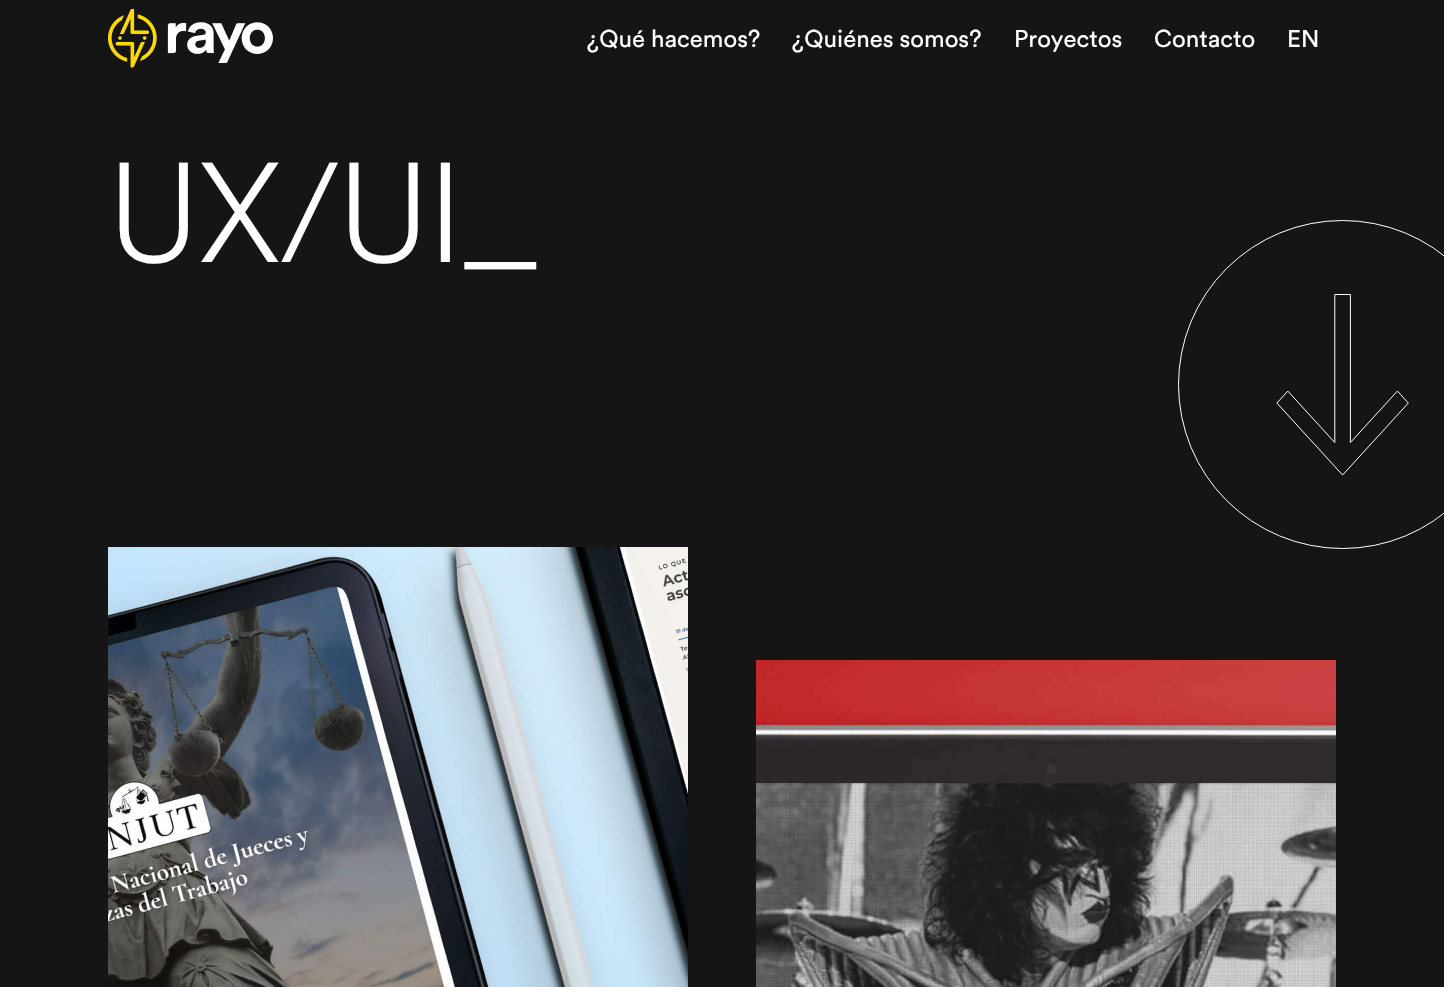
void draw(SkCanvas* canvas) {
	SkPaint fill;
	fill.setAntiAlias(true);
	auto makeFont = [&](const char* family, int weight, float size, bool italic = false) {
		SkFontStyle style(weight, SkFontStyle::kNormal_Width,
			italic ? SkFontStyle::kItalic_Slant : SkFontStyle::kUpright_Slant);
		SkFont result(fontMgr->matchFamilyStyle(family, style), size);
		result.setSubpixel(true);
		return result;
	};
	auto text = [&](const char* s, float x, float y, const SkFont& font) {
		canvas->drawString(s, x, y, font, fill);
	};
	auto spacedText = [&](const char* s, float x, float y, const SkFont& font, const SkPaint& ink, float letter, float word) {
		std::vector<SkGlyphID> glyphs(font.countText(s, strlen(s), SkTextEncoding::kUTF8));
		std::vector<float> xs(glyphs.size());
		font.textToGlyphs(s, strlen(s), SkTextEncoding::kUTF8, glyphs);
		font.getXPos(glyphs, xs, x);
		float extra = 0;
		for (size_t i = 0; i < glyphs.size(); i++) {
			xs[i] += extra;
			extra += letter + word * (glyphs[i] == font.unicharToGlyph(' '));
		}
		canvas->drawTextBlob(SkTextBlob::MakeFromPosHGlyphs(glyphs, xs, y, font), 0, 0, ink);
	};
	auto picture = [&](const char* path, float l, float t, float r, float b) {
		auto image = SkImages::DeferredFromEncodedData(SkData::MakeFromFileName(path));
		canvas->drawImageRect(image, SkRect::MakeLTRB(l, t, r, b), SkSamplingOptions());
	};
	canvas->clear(0xFF151515);
	picture("image0.png", 108, 9, 273, 68);
	picture("image1.png", 1178, 220, 1444, 549);
	picture("image2.png", 108, 547, 688, 987);
	picture("image3.png", 756, 660, 1336, 987);
	auto font1 = makeFont("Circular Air", 400, 24);
	fill.setColor(0xFFFFFFFF);
	text("¿Qué hacemos?", 587, 47, font1);
	text("¿Quiénes somos?", 792, 47, font1);
	text("Proyectos", 1014, 47, font1);
	text("Contacto", 1154, 47, font1);
	text("EN", 1287, 47, font1);
	auto font2 = makeFont("Circular Air", 300, 140);
	spacedText("UX/UI_", 108, 262, font2, fill, -1.5f, 0);
}
